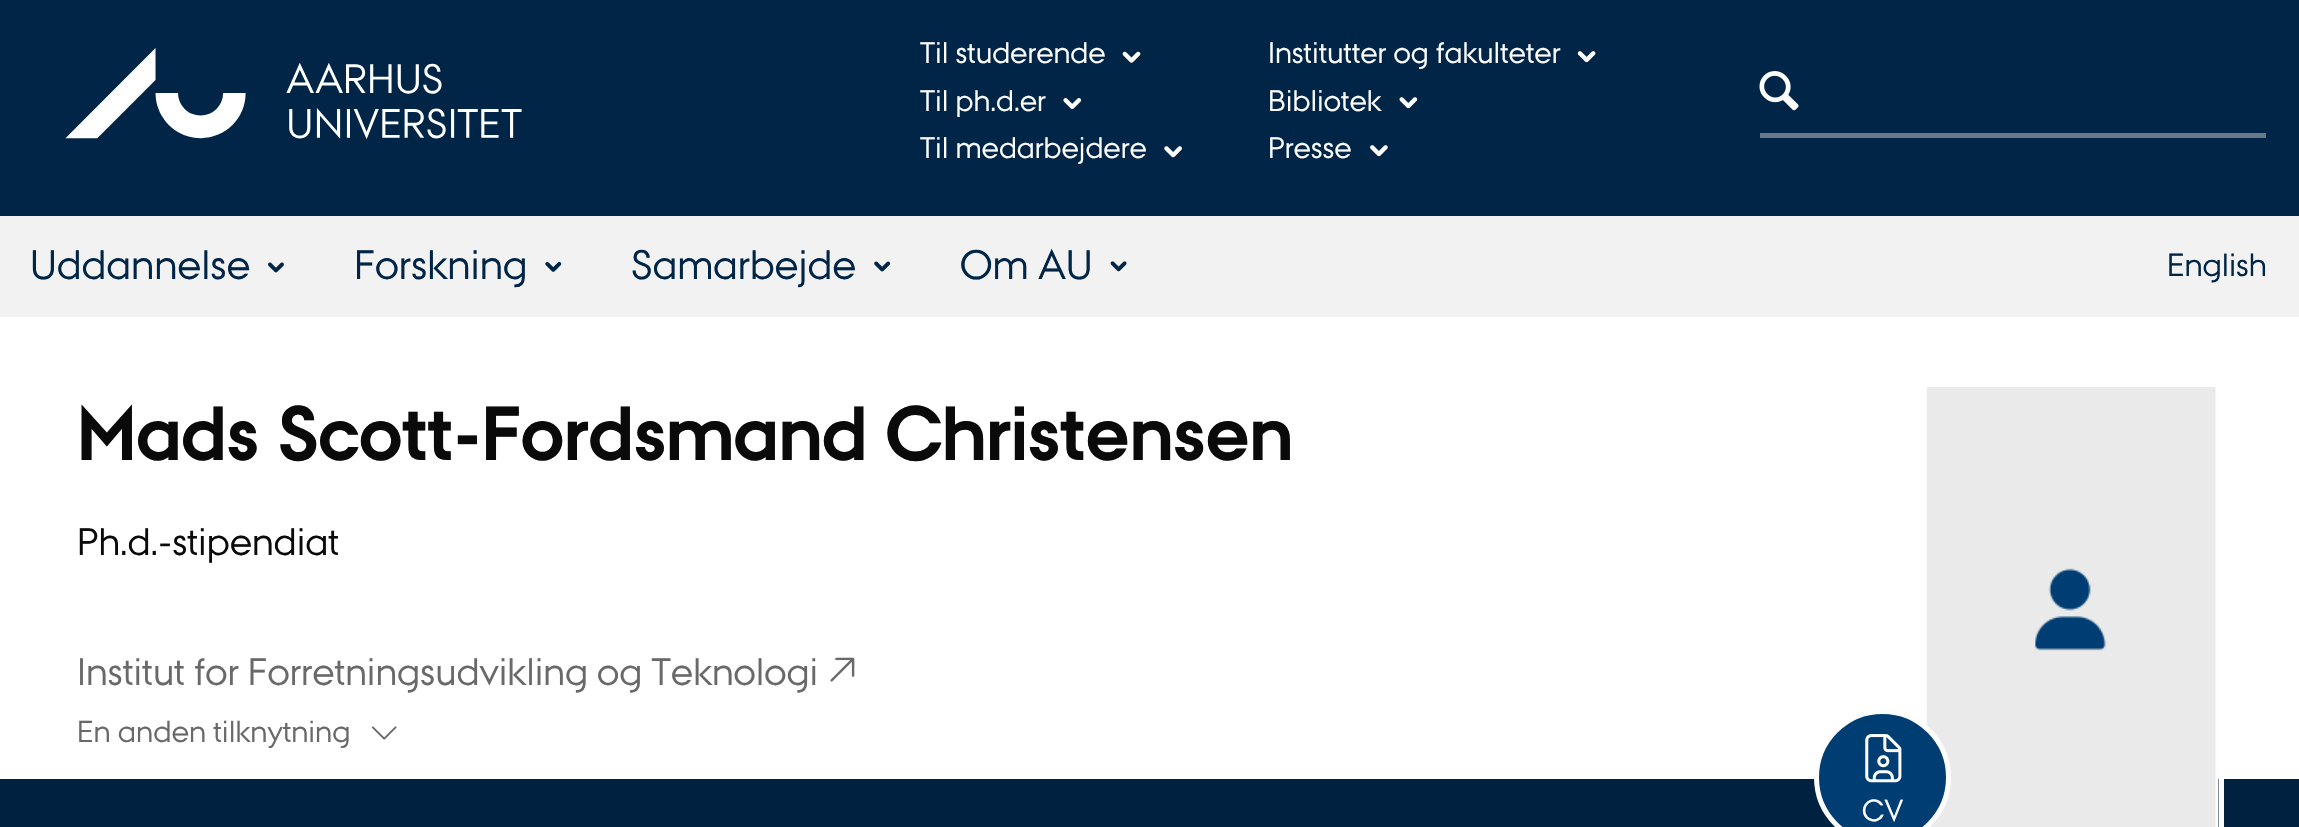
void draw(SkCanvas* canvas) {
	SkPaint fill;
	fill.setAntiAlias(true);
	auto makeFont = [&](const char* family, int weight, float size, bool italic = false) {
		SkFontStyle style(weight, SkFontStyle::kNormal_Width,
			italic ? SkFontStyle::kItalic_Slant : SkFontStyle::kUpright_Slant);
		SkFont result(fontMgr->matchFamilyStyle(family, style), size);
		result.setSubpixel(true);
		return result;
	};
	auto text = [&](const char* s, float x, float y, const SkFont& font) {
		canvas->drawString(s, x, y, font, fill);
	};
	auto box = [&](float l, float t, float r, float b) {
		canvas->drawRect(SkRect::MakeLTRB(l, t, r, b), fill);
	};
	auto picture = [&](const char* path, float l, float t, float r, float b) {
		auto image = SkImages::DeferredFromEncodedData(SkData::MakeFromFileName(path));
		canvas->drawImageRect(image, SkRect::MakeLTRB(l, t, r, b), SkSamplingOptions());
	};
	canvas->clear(0xFFFFFFFF);
	fill.setColor(0xFF002546);
	box(0, 0, 2299, 216);
	picture("image0.png", 1759, 71, 1799, 111);
	fill.setColor(0xFF687989);
	box(1760, 133, 2266, 138);
	picture("image1.png", 65, 48, 522, 139);
	picture("image2.png", 1122, 51, 1141, 63);
	picture("image3.png", 1577, 51, 1596, 63);
	picture("image4.png", 1063, 98, 1082, 109);
	picture("image5.png", 1399, 97, 1418, 109);
	picture("image6.png", 1164, 146, 1182, 158);
	picture("image7.png", 1370, 145, 1388, 157);
	fill.setColor(0xFFF2F2F2);
	box(0, 216, 2299, 317);
	picture("image8.png", 268, 262, 284, 273);
	picture("image9.png", 545, 261, 562, 272);
	picture("image10.png", 874, 261, 891, 272);
	picture("image11.png", 1110, 261, 1127, 272);
	fill.setColor(0xFF002241);
	box(0, 779, 2299, 827);
	fill.setColor(0xFFFEFEFE);
	box(2219, 779, 2224, 827);
	picture("image12.png", 1924, 387, 2219, 827);
	picture("image13.png", 830, 657, 855, 682);
	picture("image14.png", 371, 726, 397, 740);
	fill.setColor(0xFF003D73);
	canvas->drawCircle(1882.5f, 777.5f, 66, fill);
	fill.setStyle(SkPaint::kStroke_Style);
	fill.setStrokeWidth(5);
	fill.setColor(0xFFFEFEFE);
	canvas->drawCircle(1882.5f, 777.5f, 66, fill);
	picture("image15.png", 1865, 734, 1902, 783);
	auto font1 = makeFont("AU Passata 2", 400, 29.75f);
	fill.setStyle(SkPaint::kFill_Style);
	text("Til studerende", 920, 63, font1);
	text("Institutter og fakulteter", 1268, 63, font1);
	text("Til ph.d.er", 920, 111, font1);
	text("Bibliotek", 1268, 111, font1);
	text("Til medarbejdere", 920, 158, font1);
	text("Presse", 1268, 158, font1);
	auto font2 = makeFont("AU Passata 2", 400, 41);
	fill.setColor(0xFF002546);
	text("Uddannelse", 30, 279, font2);
	text("Forskning", 354, 279, font2);
	text("Samarbejde", 631, 279, font2);
	text("Om AU", 960, 279, font2);
	auto font3 = makeFont("AU Passata 2", 400, 32);
	text("English", 2167, 276, font3);
	auto font4 = makeFont("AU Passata", 700, 76.5f);
	fill.setColor(0xFF0A0A0A);
	text("Mads Scott-Fordsmand Christensen", 77, 460, font4);
	auto font5 = makeFont("AU Passata", 400, 38.25f);
	text("Ph.d.-stipendiat", 77, 555, font5);
	fill.setColor(0xFF696969);
	text("Institut for Forretningsudvikling og Teknologi", 77, 685, font5);
	auto font6 = makeFont("AU Passata", 400, 30.25f);
	text("En anden tilknytning", 77, 742, font6);
	fill.setColor(0xFFFEFEFE);
	text("CV", 1862, 821, font6);
}
